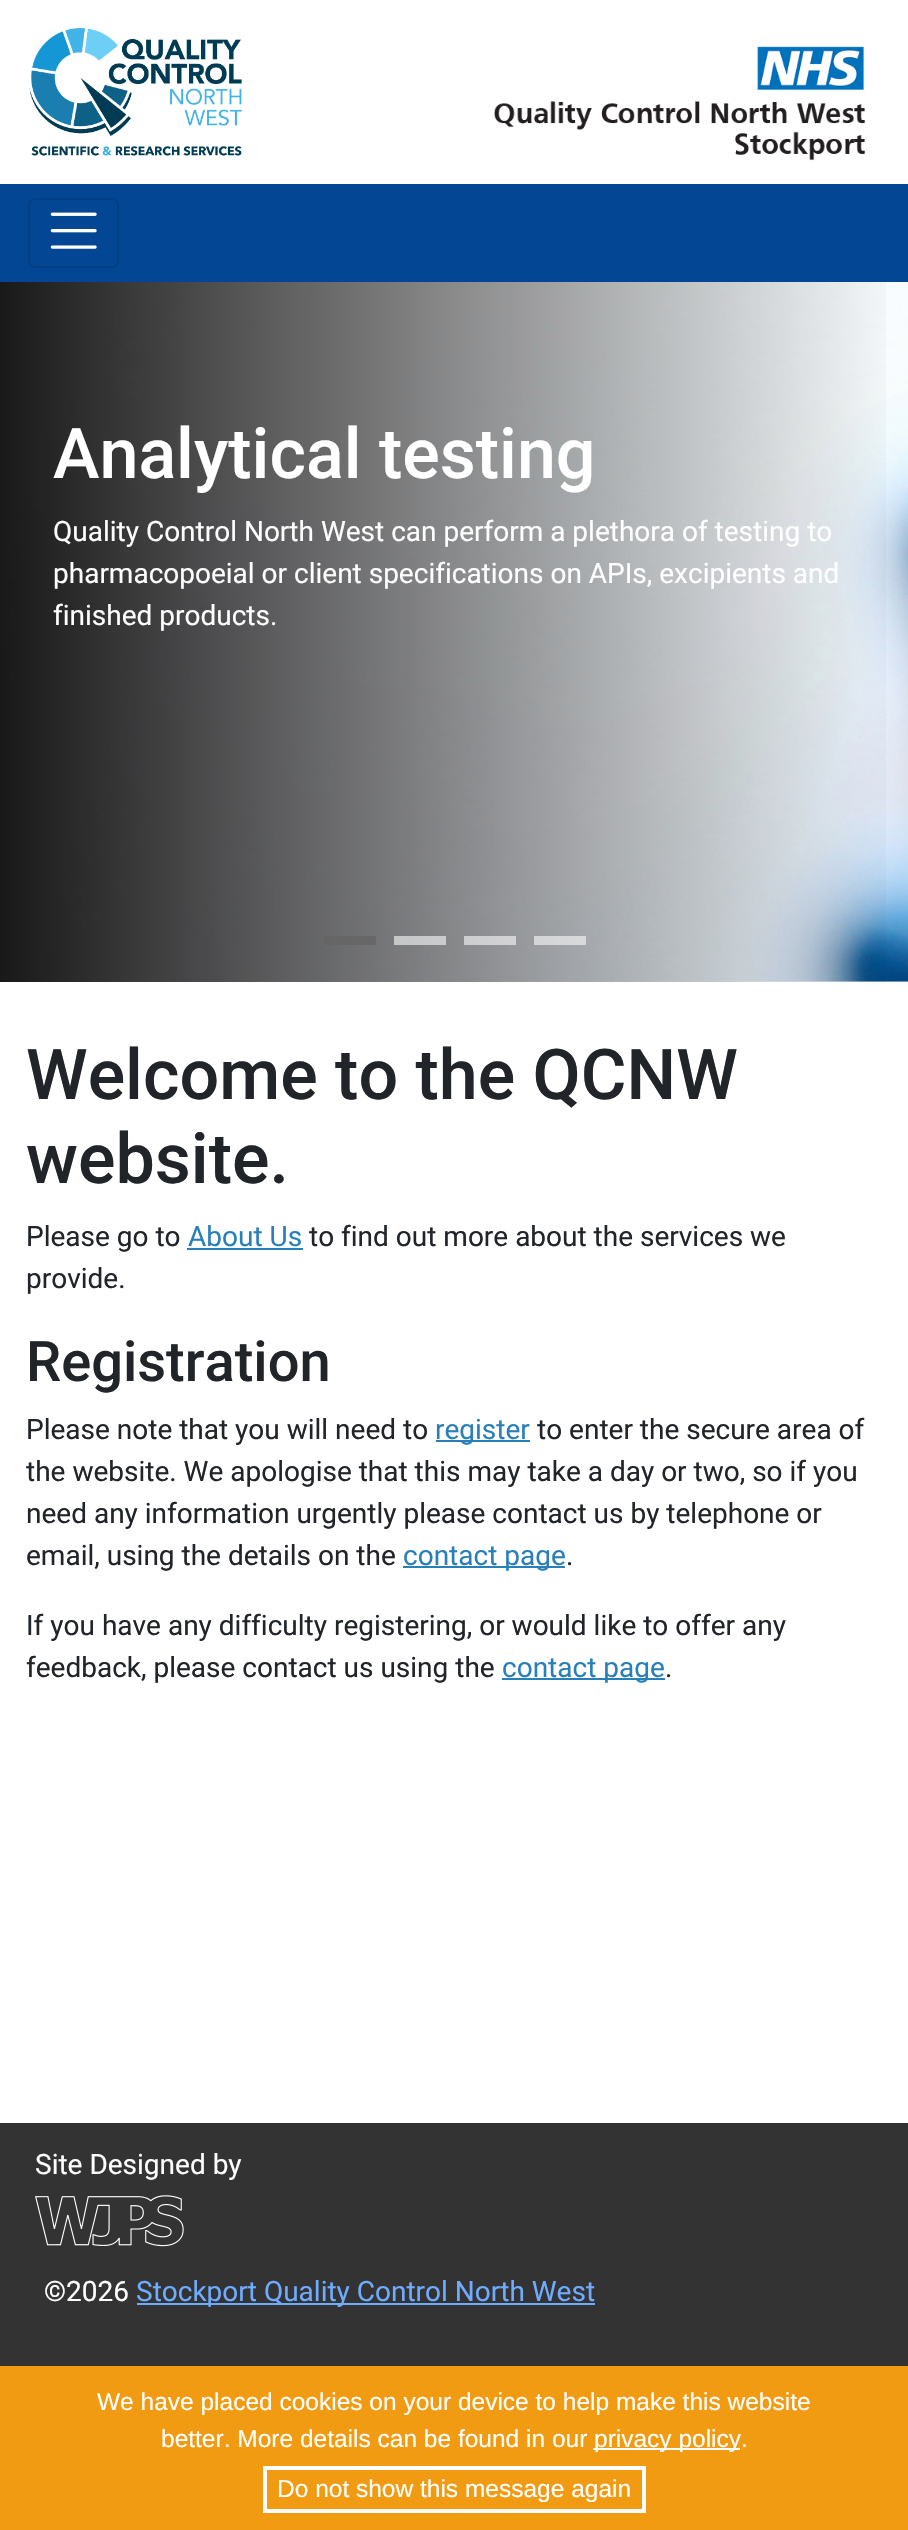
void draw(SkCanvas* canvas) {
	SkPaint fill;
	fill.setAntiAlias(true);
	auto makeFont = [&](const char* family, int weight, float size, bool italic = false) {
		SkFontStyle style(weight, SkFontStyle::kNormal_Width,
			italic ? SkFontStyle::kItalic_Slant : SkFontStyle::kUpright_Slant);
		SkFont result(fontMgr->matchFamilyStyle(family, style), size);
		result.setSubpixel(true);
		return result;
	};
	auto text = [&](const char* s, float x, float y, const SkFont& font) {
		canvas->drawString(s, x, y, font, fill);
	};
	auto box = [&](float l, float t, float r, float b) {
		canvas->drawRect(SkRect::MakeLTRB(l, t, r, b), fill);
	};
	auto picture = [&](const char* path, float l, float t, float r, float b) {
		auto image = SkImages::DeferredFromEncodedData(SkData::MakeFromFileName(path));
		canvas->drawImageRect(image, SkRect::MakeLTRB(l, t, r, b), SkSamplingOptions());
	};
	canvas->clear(0xFFFFFFFF);
	picture("image0.png", 29, 28, 242, 156);
	picture("image1.png", 494, 46, 866, 161);
	fill.setColor(0xFF034694);
	box(0, 184, 908, 282);
	fill.setStyle(SkPaint::kStroke_Style);
	fill.setStrokeWidth(2);
	fill.setColor(0xFF033F85);
	canvas->drawRoundRect(SkRect::MakeLTRB(29, 199, 118, 267), 6, 6, fill);
	picture("image2.png", 50, 212, 97, 249);
	picture("image3.png", 0, 282, 908, 982);
	fill.setStyle(SkPaint::kFill_Style);
	{
		const SkColor colors[] = {0xE6000000, 0x00000000};
		const float stops[] = {0, 1};
		const SkPoint ends[] = {{0, 632}, {908, 632}};
		fill.setShader(SkGradientShader::MakeLinear(ends, colors, stops, 2, SkTileMode::kClamp));
		fill.setAlpha(255);
	}
	box(0, 282, 886, 982);
	fill.setShader(nullptr);
	fill.setColor(0xCC646464);
	box(324, 936, 376, 945);
	fill.setColor(0x99FAFAFA);
	box(394, 936, 446, 945);
	box(464, 936, 516, 945);
	box(534, 936, 586, 945);
	fill.setColor(0xFF2980B9);
	box(187, 1248, 303, 1250);
	box(436, 1440, 530, 1442);
	box(403, 1566, 565, 1568);
	box(502, 1678, 665, 1680);
	fill.setColor(0xFF333333);
	box(0, 2123, 908, 2366);
	fill.setColor(0xFFF19B12);
	box(0, 2366, 908, 2530);
	picture("image4.png", 35, 2195, 184, 2247);
	fill.setColor(0xFF6FABFE);
	box(137, 2303, 595, 2305);
	fill.setColor(0xFFFDFDFD);
	box(593, 2448, 740, 2450);
	fill.setStyle(SkPaint::kStroke_Style);
	fill.setStrokeWidth(4);
	canvas->drawRect(SkRect::MakeLTRB(265, 2468, 644, 2511), fill);
	auto font1 = makeFont("Roboto", 500, 70);
	fill.setStyle(SkPaint::kFill_Style);
	fill.setColor(0xFFFFFFFF);
	text("Analytical testing", 53, 478, font1);
	auto font2 = makeFont("Roboto", 400, 28);
	text("Quality Control North West can perform a plethora of testing to", 53, 541, font2);
	text("pharmacopoeial or client specifications on APIs, excipients and", 53, 583, font2);
	text("finished products.", 53, 625, font2);
	fill.setColor(0xFF212529);
	text("Welcome to the QCNW", 26, 1099, font1);
	text("website.", 26, 1183, font1);
	text("Please go to", 26, 1246, font2);
	fill.setColor(0xFF2980B9);
	text("About Us", 188, 1246, font2);
	fill.setColor(0xFF212529);
	text("to find out more about the services we", 309, 1246, font2);
	text("provide.", 26, 1288, font2);
	auto font3 = makeFont("Roboto", 500, 56);
	text("Registration", 26, 1381, font3);
	text("Please note that you will need to", 26, 1439, font2);
	fill.setColor(0xFF2980B9);
	text("register", 435, 1439, font2);
	fill.setColor(0xFF212529);
	text("to enter the secure area of", 537, 1439, font2);
	text("the website. We apologise that this may take a day or two, so if you", 26, 1481, font2);
	text("need any information urgently please contact us by telephone or", 26, 1523, font2);
	text("email, using the details on the", 26, 1565, font2);
	fill.setColor(0xFF2980B9);
	text("contact page", 403, 1565, font2);
	fill.setColor(0xFF212529);
	text(".", 566, 1565, font2);
	text("If you have any difficulty registering, or would like to offer any", 26, 1635, font2);
	text("feedback, please contact us using the", 26, 1677, font2);
	fill.setColor(0xFF2980B9);
	text("contact page", 502, 1677, font2);
	fill.setColor(0xFF212529);
	text(".", 665, 1677, font2);
	fill.setColor(0xFFFFFFFF);
	text("Site Designed by", 35, 2174, font2);
	text("©2026", 44, 2301, font2);
	fill.setColor(0xFF6FABFE);
	text("Stockport Quality Control North West", 136, 2301, font2);
	auto font4 = makeFont("Liberation Sans", 400, 24.5f);
	fill.setColor(0xFFFFFFFF);
	text("We have placed cookies on your device to help make this website", 97, 2410, font4);
	text("better. More details can be found in our", 161, 2447, font4);
	text("privacy policy.", 594, 2447, font4);
	text("Do not show this message again", 277, 2497, font4);
}
